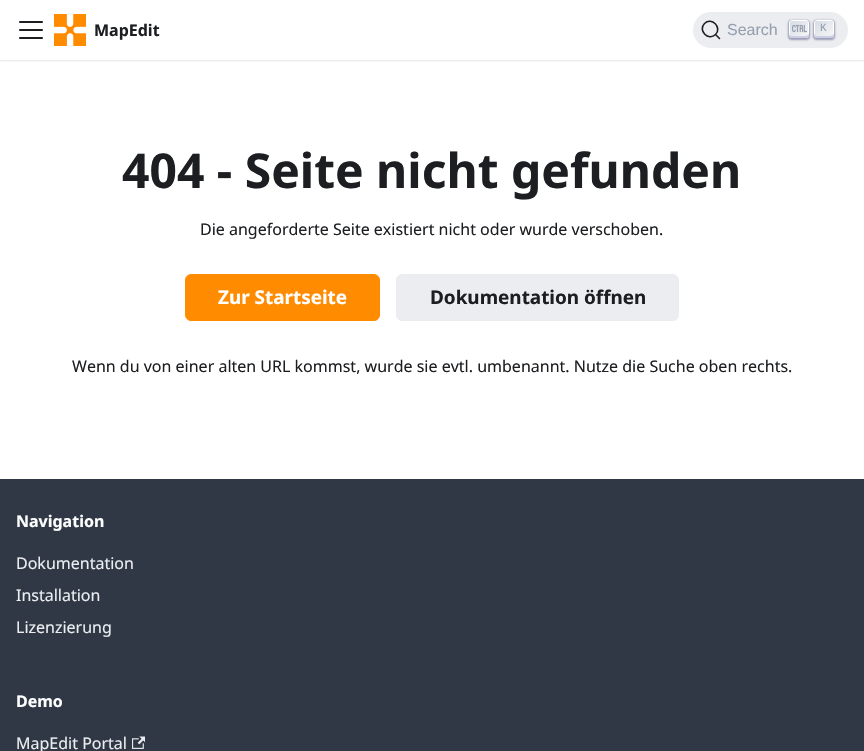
void draw(SkCanvas* canvas) {
	SkPaint fill;
	fill.setAntiAlias(true);
	auto makeFont = [&](const char* family, int weight, float size, bool italic = false) {
		SkFontStyle style(weight, SkFontStyle::kNormal_Width,
			italic ? SkFontStyle::kItalic_Slant : SkFontStyle::kUpright_Slant);
		SkFont result(fontMgr->matchFamilyStyle(family, style), size);
		result.setSubpixel(true);
		return result;
	};
	auto text = [&](const char* s, float x, float y, const SkFont& font) {
		canvas->drawString(s, x, y, font, fill);
	};
	auto box = [&](float l, float t, float r, float b) {
		canvas->drawRect(SkRect::MakeLTRB(l, t, r, b), fill);
	};
	auto roundBox = [&](float l, float t, float r, float b, float radius) {
		canvas->drawRoundRect(SkRect::MakeLTRB(l, t, r, b), radius, radius, fill);
	};
	auto picture = [&](const char* path, float l, float t, float r, float b) {
		auto image = SkImages::DeferredFromEncodedData(SkData::MakeFromFileName(path));
		canvas->drawImageRect(image, SkRect::MakeLTRB(l, t, r, b), SkSamplingOptions());
	};
	canvas->clear(0xFFFFFFFF);
	canvas->save();
	canvas->clipRect(SkRect::MakeLTRB(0, 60, 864, 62));
	fill.setColor(0x1A000000);
	fill.setMaskFilter(SkMaskFilter::MakeBlur(kNormal_SkBlurStyle, 1));
	canvas->drawRect(SkRect::MakeLTRB(0, 1, 864, 61), fill);
	fill.setMaskFilter(nullptr);
	canvas->restore();
	picture("image0.png", 19, 21, 43, 39);
	picture("image1.png", 54, 14, 86, 46);
	fill.setColor(0xFFEBEDF0);
	roundBox(693, 12, 848, 48, 18);
	fill.setStyle(SkPaint::kStroke_Style);
	fill.setStrokeWidth(1.6f);
	fill.setStrokeCap(SkPaint::kRound_Cap);
	fill.setStrokeJoin(SkPaint::kRound_Join);
	fill.setColor(0xFF1C1E21);
	canvas->drawPath(SkPathBuilder().moveTo(715.5f, 34.5f).lineTo(719.5f, 38.5f).lineTo(715.5f, 34.5f).cubicTo(708.5f, 41.5f, 697.5f, 30.5f, 704.5f, 23.5f).cubicTo(711.5f, 16.5f, 722.5f, 27.5f, 715.5f, 34.5f).close().detach(), fill);
	fill.setStyle(SkPaint::kFill_Style);
	fill.setColor(0x661E235A);
	fill.setMaskFilter(SkMaskFilter::MakeBlur(kNormal_SkBlurStyle, 1));
	canvas->drawRoundRect(SkRect::MakeLTRB(788, 20, 810, 40), 4, 4, fill);
	fill.setMaskFilter(nullptr);
	{
		const SkColor colors[] = {0xFFD5DBE4, 0xFFF8F8F8};
		const float stops[] = {0, 1};
		const SkPoint ends[] = {{790, 19}, {809, 39}};
		fill.setShader(SkGradientShader::MakeLinear(ends, colors, stops, 2, SkTileMode::kClamp));
		fill.setAlpha(255);
	}
	canvas->drawRoundRect(SkRect::MakeLTRB(789.5f, 20.5f, 808.5f, 37.5f), 2.5f, 2.5f, fill);
	fill.setStyle(SkPaint::kStroke_Style);
	fill.setStrokeWidth(1);
	fill.setStrokeCap(SkPaint::kButt_Cap);
	fill.setStrokeJoin(SkPaint::kMiter_Join);
	fill.setShader(nullptr);
	fill.setColor(0xFFFFFFFF);
	canvas->drawRoundRect(SkRect::MakeLTRB(789.5f, 20.5f, 808.5f, 37.5f), 2.5f, 2.5f, fill);
	fill.setStyle(SkPaint::kFill_Style);
	fill.setColor(0xFFCDCDE6);
	canvas->drawPath(SkPathBuilder().moveTo(809, 32.5f).cubicTo(809, 35, 807.5f, 36, 804, 36).lineTo(792, 36).cubicTo(790, 36, 789, 34.5f, 789, 32.5f).lineTo(789, 35).cubicTo(789, 36.5f, 790.5f, 38, 792, 38).lineTo(806, 38).cubicTo(807.5f, 38, 809, 36.5f, 809, 35).close().detach(), fill);
	picture("image2.png", 792, 24, 807, 33);
	fill.setColor(0x661E235A);
	fill.setMaskFilter(SkMaskFilter::MakeBlur(kNormal_SkBlurStyle, 1));
	canvas->drawRoundRect(SkRect::MakeLTRB(813, 20, 835, 40), 4, 4, fill);
	fill.setMaskFilter(nullptr);
	{
		const SkColor colors[] = {0xFFD5DBE4, 0xFFF8F8F8};
		const float stops[] = {0, 1};
		const SkPoint ends[] = {{815, 19}, {834, 39}};
		fill.setShader(SkGradientShader::MakeLinear(ends, colors, stops, 2, SkTileMode::kClamp));
		fill.setAlpha(255);
	}
	canvas->drawRoundRect(SkRect::MakeLTRB(814.5f, 20.5f, 833.5f, 37.5f), 2.5f, 2.5f, fill);
	fill.setStyle(SkPaint::kStroke_Style);
	fill.setShader(nullptr);
	fill.setColor(0xFFFFFFFF);
	canvas->drawRoundRect(SkRect::MakeLTRB(814.5f, 20.5f, 833.5f, 37.5f), 2.5f, 2.5f, fill);
	fill.setStyle(SkPaint::kFill_Style);
	fill.setColor(0xFFCDCDE6);
	canvas->drawPath(SkPathBuilder().moveTo(834, 32.5f).cubicTo(834, 35, 832.5f, 36, 829, 36).lineTo(817, 36).cubicTo(815, 36, 814, 34.5f, 814, 32.5f).lineTo(814, 35).cubicTo(814, 36.5f, 815.5f, 38, 817, 38).lineTo(831, 38).cubicTo(832.5f, 38, 834, 36.5f, 834, 35).close().detach(), fill);
	fill.setColor(0xFFFF8B00);
	canvas->drawRoundRect(SkRect::MakeLTRB(185.5f, 274.5f, 379.5f, 320.5f), 5.5f, 5.5f, fill);
	fill.setStyle(SkPaint::kStroke_Style);
	canvas->drawRoundRect(SkRect::MakeLTRB(185.5f, 274.5f, 379.5f, 320.5f), 5.5f, 5.5f, fill);
	fill.setStyle(SkPaint::kFill_Style);
	fill.setColor(0xFFEBEDF0);
	canvas->drawRoundRect(SkRect::MakeLTRB(396.5f, 274.5f, 678.5f, 320.5f), 5.5f, 5.5f, fill);
	fill.setStyle(SkPaint::kStroke_Style);
	canvas->drawRoundRect(SkRect::MakeLTRB(396.5f, 274.5f, 678.5f, 320.5f), 5.5f, 5.5f, fill);
	fill.setStyle(SkPaint::kFill_Style);
	fill.setColor(0xFF303846);
	box(0, 479, 864, 751);
	picture("image3.png", 132, 736, 145, 749);
	auto font1 = makeFont("Noto Sans", 700, 16);
	fill.setColor(0xFF1C1E21);
	text("MapEdit", 94, 36, font1);
	auto font2 = makeFont("Liberation Sans", 400, 16);
	fill.setColor(0xFF969FAF);
	text("Search", 727, 35, font2);
	auto font3 = makeFont("Liberation Mono", 400, 11);
	text("K", 820, 31, font3);
	auto font4 = makeFont("Noto Sans", 700, 48);
	fill.setColor(0xFF1C1E21);
	text("404 - Seite nicht gefunden", 122, 188, font4);
	auto font5 = makeFont("Noto Sans", 400, 16);
	text("Die angeforderte Seite existiert nicht oder wurde verschoben.", 200, 235, font5);
	auto font6 = makeFont("Noto Sans", 700, 18.9f);
	fill.setColor(0xFFFFFFFF);
	text("Zur Startseite", 218, 304, font6);
	fill.setColor(0xFF1C1E21);
	text("Dokumentation öffnen", 430, 304, font6);
	text("Wenn du von einer alten URL kommst, wurde sie evtl. umbenannt. Nutze die Suche oben rechts.", 72, 372, font5);
	fill.setColor(0xFFFFFFFF);
	text("Navigation", 16, 527, font1);
	fill.setColor(0xFFEBEDF0);
	text("Dokumentation", 16, 569, font5);
	text("Installation", 16, 601, font5);
	text("Lizenzierung", 16, 633, font5);
	fill.setColor(0xFFFFFFFF);
	text("Demo", 16, 707, font1);
	fill.setColor(0xFFEBEDF0);
	text("MapEdit Portal", 16, 749, font5);
}
